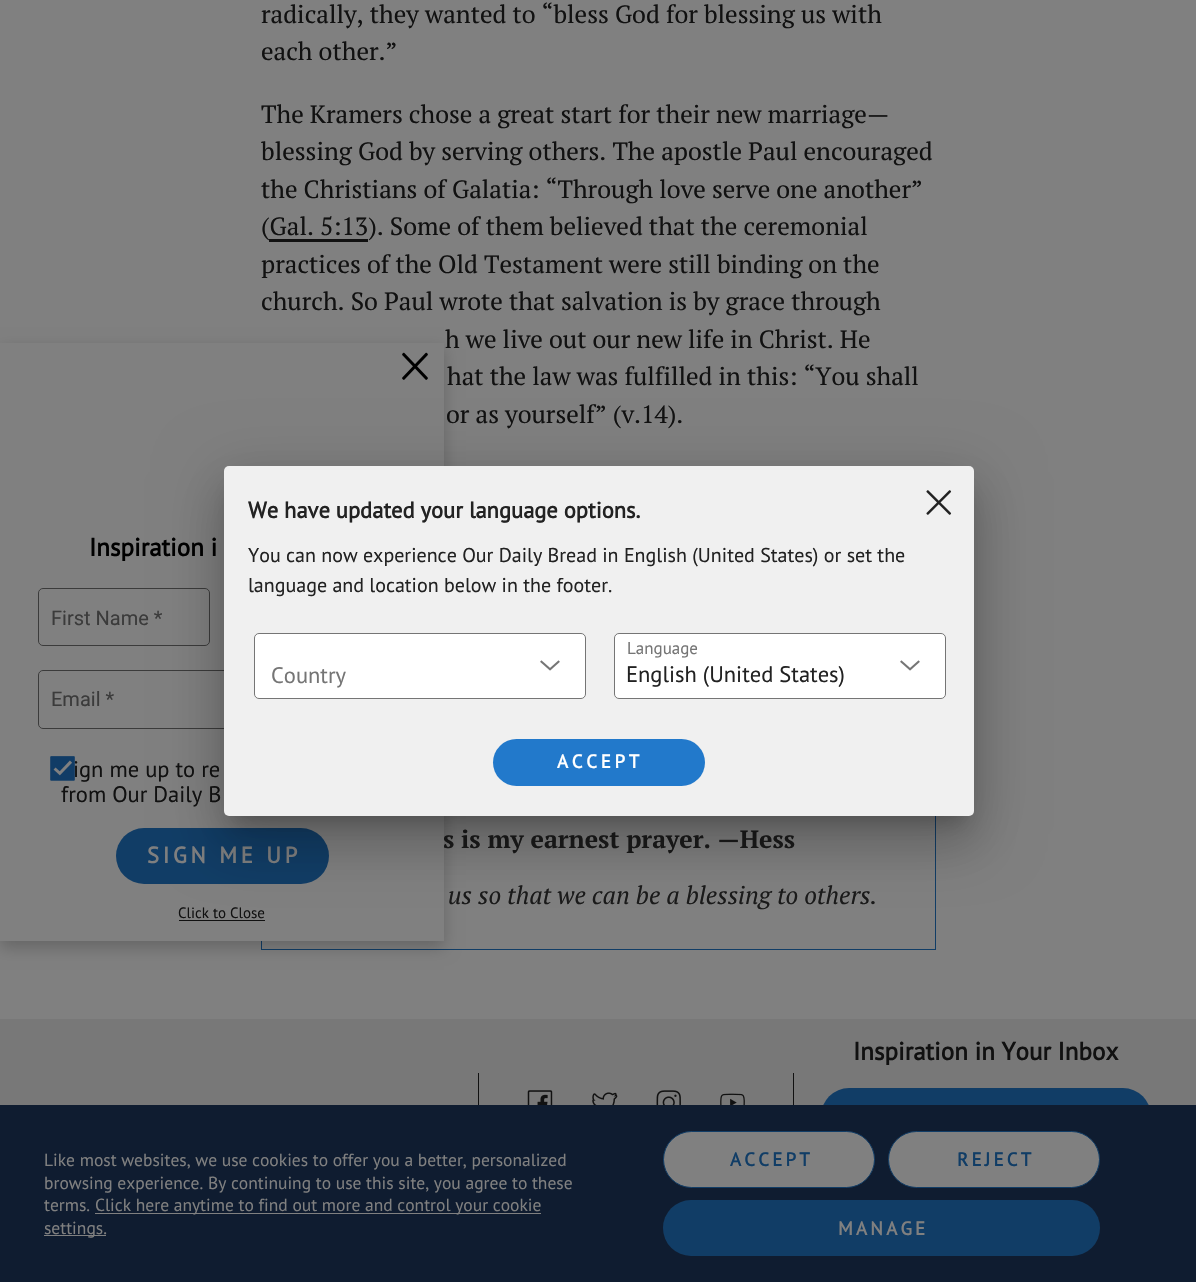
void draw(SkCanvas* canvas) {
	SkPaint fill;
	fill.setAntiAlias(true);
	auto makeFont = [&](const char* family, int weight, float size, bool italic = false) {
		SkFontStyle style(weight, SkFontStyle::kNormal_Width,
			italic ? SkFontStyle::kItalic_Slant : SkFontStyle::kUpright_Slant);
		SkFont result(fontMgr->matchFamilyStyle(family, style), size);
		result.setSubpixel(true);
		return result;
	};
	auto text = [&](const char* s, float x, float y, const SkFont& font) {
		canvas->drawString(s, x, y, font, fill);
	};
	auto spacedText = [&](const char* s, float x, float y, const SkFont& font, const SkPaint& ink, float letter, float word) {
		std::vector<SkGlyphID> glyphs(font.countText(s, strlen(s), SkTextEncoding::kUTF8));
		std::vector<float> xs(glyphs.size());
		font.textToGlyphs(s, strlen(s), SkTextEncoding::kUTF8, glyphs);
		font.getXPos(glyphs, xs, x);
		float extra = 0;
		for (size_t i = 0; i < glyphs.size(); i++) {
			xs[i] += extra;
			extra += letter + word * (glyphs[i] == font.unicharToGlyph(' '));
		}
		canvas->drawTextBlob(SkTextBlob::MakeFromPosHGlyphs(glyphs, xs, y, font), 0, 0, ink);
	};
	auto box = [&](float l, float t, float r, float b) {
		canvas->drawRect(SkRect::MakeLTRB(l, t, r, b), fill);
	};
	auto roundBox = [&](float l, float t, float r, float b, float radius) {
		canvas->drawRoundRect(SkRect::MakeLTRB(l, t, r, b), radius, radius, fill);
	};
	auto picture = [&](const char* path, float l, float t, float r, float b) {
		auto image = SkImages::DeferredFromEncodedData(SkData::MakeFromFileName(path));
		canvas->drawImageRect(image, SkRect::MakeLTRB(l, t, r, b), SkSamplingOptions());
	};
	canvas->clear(0xFF808080);
	fill.setColor(0xFF111111);
	box(269, 239, 368, 242);
	fill.setStyle(SkPaint::kStroke_Style);
	fill.setStrokeWidth(1);
	fill.setColor(0xFF113D66);
	canvas->drawRect(SkRect::MakeLTRB(261.5f, 623.5f, 935.5f, 949.5f), fill);
	fill.setStyle(SkPaint::kFill_Style);
	fill.setColor(0x33000000);
	fill.setMaskFilter(SkMaskFilter::MakeBlur(kNormal_SkBlurStyle, 7.5f));
	canvas->drawRect(SkRect::MakeLTRB(0, 349, 444, 948), fill);
	fill.setMaskFilter(nullptr);
	fill.setColor(0xFF787878);
	box(0, 1019, 1196, 1105);
	fill.setColor(0xFF113D66);
	roundBox(821, 1088, 1151, 1144, 28);
	fill.setColor(0xFF111111);
	box(793, 1073, 794, 1105);
	box(478, 1073, 479, 1105);
	picture("image2.png", 527, 1090, 553, 1105);
	picture("image3.png", 592, 1092, 618, 1105);
	picture("image4.png", 656, 1090, 681, 1105);
	picture("image5.png", 720, 1093, 745, 1105);
	fill.setColor(0xFF0F1C30);
	box(0, 1105, 1196, 1282);
	fill.setColor(0xFF808080);
	box(95, 1213, 541, 1214);
	box(44, 1235, 106, 1236);
	canvas->drawRoundRect(SkRect::MakeLTRB(663.5f, 1131.5f, 874.5f, 1187.5f), 28, 28, fill);
	fill.setStyle(SkPaint::kStroke_Style);
	fill.setColor(0xFF113D66);
	canvas->drawRoundRect(SkRect::MakeLTRB(663.5f, 1131.5f, 874.5f, 1187.5f), 28, 28, fill);
	fill.setStyle(SkPaint::kFill_Style);
	fill.setColor(0xFF808080);
	canvas->drawRoundRect(SkRect::MakeLTRB(888.5f, 1131.5f, 1099.5f, 1187.5f), 28, 28, fill);
	fill.setStyle(SkPaint::kStroke_Style);
	fill.setColor(0xFF113D66);
	canvas->drawRoundRect(SkRect::MakeLTRB(888.5f, 1131.5f, 1099.5f, 1187.5f), 28, 28, fill);
	fill.setStyle(SkPaint::kFill_Style);
	roundBox(663, 1200, 1100, 1256, 28);
	auto font1 = makeFont("PT Serif", 400, 25);
	fill.setColor(0xFF111111);
	text("radically, they wanted to “bless God for blessing us with", 261, 23, font1);
	text("each other.”", 261, 60, font1);
	text("The Kramers chose a great start for their new marriage—", 261, 123, font1);
	text("blessing God by serving others. The apostle Paul encouraged", 261, 160, font1);
	text("the Christians of Galatia: “Through love serve one another”", 261, 198, font1);
	text("(Gal. 5:13). Some of them believed that the ceremonial", 261, 235, font1);
	text("practices of the Old Testament were still binding on the", 261, 273, font1);
	text("church. So Paul wrote that salvation is by grace through", 261, 310, font1);
	text("h we live out our new life in Christ. He", 445, 348, font1);
	text("hat the law was fulfilled in this: “You shall", 447, 385, font1);
	text("or as yourself” (v.14).", 446, 423, font1);
	auto font2 = makeFont("PT Serif", 700, 25);
	fill.setColor(0xFF1A1A1A);
	text("s is my earnest prayer. —Hess", 443, 848, font2);
	fill.setColor(0xFF808080);
	box(0, 343, 444, 941);
	fill.setStyle(SkPaint::kStroke_Style);
	fill.setColor(0xFF3B3B3B);
	canvas->drawRoundRect(SkRect::MakeLTRB(38.5f, 588.5f, 209.5f, 645.5f), 4.5f, 4.5f, fill);
	auto font3 = makeFont("Roboto", 400, 20);
	fill.setStyle(SkPaint::kFill_Style);
	text("First Name *", 51, 625, font3);
	fill.setColor(0xFF113D66);
	roundBox(116, 828, 329, 884, 28);
	auto font4 = makeFont("PT Sans", 700, 22.5f);
	fill.setColor(0xFF808080);
	spacedText("SIGN ME UP", 147, 863, font4, fill, 3.75f, 0);
	auto font5 = makeFont("PT Sans", 400, 22.5f);
	fill.setColor(0xFF111111);
	text("ign me up to re", 73, 777, font5);
	picture("image1.png", 50, 756, 75, 781);
	fill.setStyle(SkPaint::kStroke_Style);
	fill.setColor(0xFF3B3B3B);
	canvas->drawRoundRect(SkRect::MakeLTRB(38.5f, 670.5f, 405.5f, 728.5f), 4.5f, 4.5f, fill);
	fill.setStyle(SkPaint::kFill_Style);
	text("Email *", 51, 706, font3);
	picture("image0.png", 402, 352, 428, 380);
	auto font6 = makeFont("PT Sans", 400, 15);
	fill.setColor(0xFF111111);
	text("Click to Close", 178, 918, font6);
	box(179, 920, 265, 921);
	text("from Our Daily B", 61, 802, font5);
	auto font7 = makeFont("PT Sans", 700, 25);
	fill.setColor(0xFF000000);
	text("Inspiration i", 89, 556, font7);
	auto font8 = makeFont("PT Serif", 400, 25, true);
	fill.setColor(0xFF1A1A1A);
	text("us so that we can be a blessing to others.", 448, 904, font8);
	fill.setColor(0xFF111111);
	text("Inspiration in Your Inbox", 853, 1060, font7);
	auto font9 = makeFont("PT Sans", 400, 17.5f);
	fill.setColor(0xFF808080);
	text("Like most websites, we use cookies to offer you a better, personalized", 44, 1166, font9);
	text("browsing experience. By continuing to use this site, you agree to these", 44, 1189, font9);
	text("terms.", 44, 1211, font9);
	text("Click here anytime to find out more and control your cookie", 95, 1211, font9);
	text("settings.", 44, 1234, font9);
	auto font10 = makeFont("PT Sans", 700, 18.75f);
	fill.setColor(0xFF113D66);
	spacedText("ACCEPT", 730, 1166, font10, fill, 3.25f, 0);
	spacedText("REJECT", 957, 1166, font10, fill, 3.25f, 0);
	fill.setColor(0xFF808080);
	spacedText("MANAGE", 838, 1235, font10, fill, 3.25f, 0);
	fill.setColor(0x1F000000);
	fill.setMaskFilter(SkMaskFilter::MakeBlur(kNormal_SkBlurStyle, 29));
	canvas->drawRoundRect(SkRect::MakeLTRB(214, 468, 984, 838), 15, 15, fill);
	fill.setMaskFilter(nullptr);
	fill.setColor(0x24000000);
	fill.setMaskFilter(SkMaskFilter::MakeBlur(kNormal_SkBlurStyle, 24));
	canvas->drawRoundRect(SkRect::MakeLTRB(220, 493, 978, 850), 9, 9, fill);
	fill.setMaskFilter(nullptr);
	fill.setColor(0x33000000);
	fill.setMaskFilter(SkMaskFilter::MakeBlur(kNormal_SkBlurStyle, 9.5f));
	canvas->drawRect(SkRect::MakeLTRB(233, 489, 965, 821), fill);
	fill.setMaskFilter(nullptr);
	fill.setColor(0xFFF0F0F0);
	roundBox(224, 466, 974, 816, 5);
	fill.setColor(0xFF222222);
	text("We have updated your language options.", 248, 518, font4);
	picture("image6.png", 926, 490, 952, 515);
	auto font11 = makeFont("PT Sans", 400, 20);
	text("You can now experience Our Daily Bread in English (United States) or set the", 248, 562, font11);
	text("language and location below in the footer.", 248, 592, font11);
	fill.setColor(0xFFFFFFFF);
	canvas->drawRoundRect(SkRect::MakeLTRB(254.5f, 633.5f, 585.5f, 698.5f), 4.5f, 4.5f, fill);
	fill.setStyle(SkPaint::kStroke_Style);
	fill.setColor(0xFF757575);
	canvas->drawRoundRect(SkRect::MakeLTRB(254.5f, 633.5f, 585.5f, 698.5f), 4.5f, 4.5f, fill);
	picture("image7.png", 540, 660, 560, 671);
	fill.setStyle(SkPaint::kFill_Style);
	text("Country", 271, 683, font5);
	fill.setColor(0xFFFFFFFF);
	canvas->drawRoundRect(SkRect::MakeLTRB(614.5f, 633.5f, 945.5f, 698.5f), 4.5f, 4.5f, fill);
	fill.setStyle(SkPaint::kStroke_Style);
	fill.setColor(0xFF757575);
	canvas->drawRoundRect(SkRect::MakeLTRB(614.5f, 633.5f, 945.5f, 698.5f), 4.5f, 4.5f, fill);
	auto font12 = makeFont("PT Sans", 400, 17);
	fill.setStyle(SkPaint::kFill_Style);
	text("Language", 627, 654, font12);
	fill.setColor(0xFF222222);
	text("English (United States)", 626, 682, font5);
	picture("image7.png", 900, 660, 920, 671);
	fill.setColor(0xFF2279CB);
	roundBox(493, 739, 705, 786, 23.5f);
	fill.setColor(0xFFFFFFFF);
	spacedText("ACCEPT", 557, 768, font10, fill, 3.75f, 0);
}
